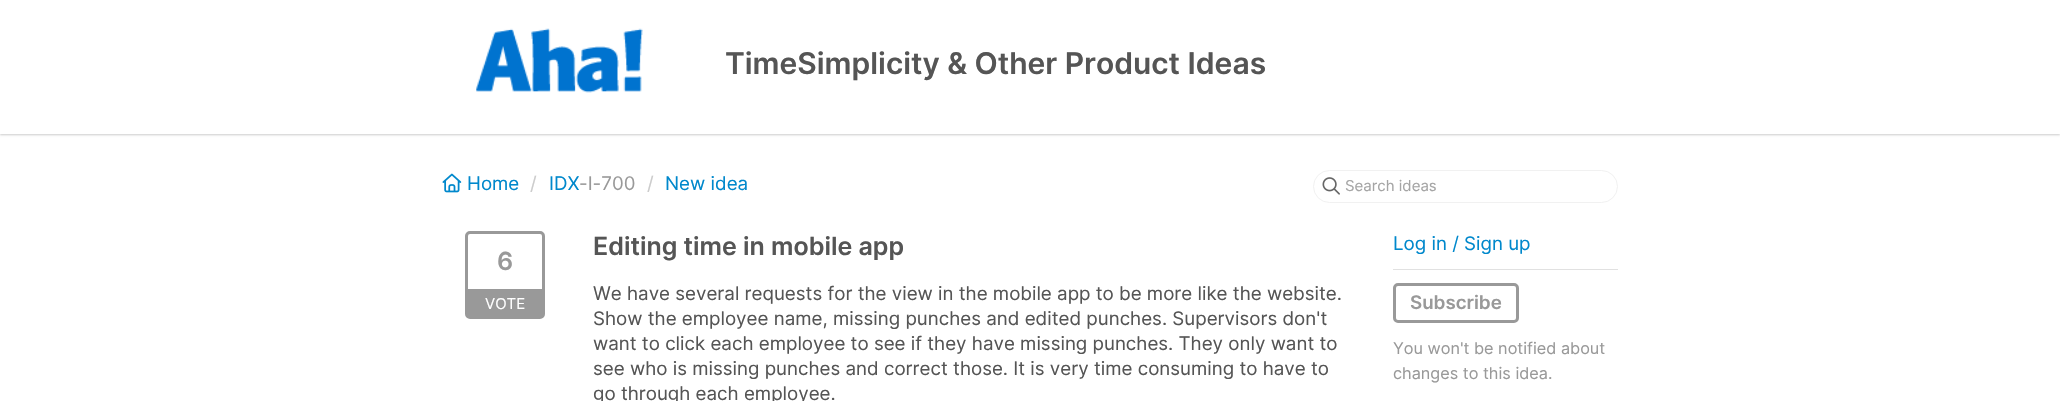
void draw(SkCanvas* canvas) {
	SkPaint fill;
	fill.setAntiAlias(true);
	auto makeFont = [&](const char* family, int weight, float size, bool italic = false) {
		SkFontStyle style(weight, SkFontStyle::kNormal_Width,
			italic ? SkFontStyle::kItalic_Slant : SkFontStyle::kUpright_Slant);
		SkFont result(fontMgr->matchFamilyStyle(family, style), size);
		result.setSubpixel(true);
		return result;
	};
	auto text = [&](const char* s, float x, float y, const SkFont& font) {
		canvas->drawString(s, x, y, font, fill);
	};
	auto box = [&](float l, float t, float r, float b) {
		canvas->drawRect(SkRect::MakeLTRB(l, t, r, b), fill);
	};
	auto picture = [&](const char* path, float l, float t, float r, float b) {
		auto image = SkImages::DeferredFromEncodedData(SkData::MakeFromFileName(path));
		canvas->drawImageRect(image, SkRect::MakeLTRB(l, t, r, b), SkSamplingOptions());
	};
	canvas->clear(0xFFFFFFFF);
	fill.setColor(0x33000000);
	fill.setMaskFilter(SkMaskFilter::MakeBlur(kNormal_SkBlurStyle, 1));
	canvas->drawRect(SkRect::MakeLTRB(0, 1, 2060, 135), fill);
	fill.setMaskFilter(nullptr);
	fill.setColor(0xFFFFFFFF);
	box(0, 0, 2060, 134);
	picture("image0.png", 476, 28, 643, 93);
	picture("image1.png", 442, 173, 462, 193);
	fill.setStyle(SkPaint::kStroke_Style);
	fill.setStrokeWidth(1);
	fill.setColor(0xFFF1F1F1);
	canvas->drawRoundRect(SkRect::MakeLTRB(1313.5f, 170.5f, 1617.5f, 202.5f), 16, 16, fill);
	picture("image2.png", 1322, 177, 1340, 195);
	fill.setStrokeWidth(3);
	fill.setColor(0xFF999999);
	canvas->drawRoundRect(SkRect::MakeLTRB(466.5f, 232.5f, 543.5f, 317.5f), 3.5f, 3.5f, fill);
	fill.setStyle(SkPaint::kFill_Style);
	box(468, 289, 542, 316);
	fill.setColor(0xFFE1E1E1);
	box(1393, 269, 1618, 270);
	fill.setStyle(SkPaint::kStroke_Style);
	fill.setColor(0xFF999999);
	canvas->drawRoundRect(SkRect::MakeLTRB(1394.5f, 284.5f, 1517.5f, 321.5f), 3.5f, 3.5f, fill);
	auto font1 = makeFont("Inter", 600, 30);
	fill.setStyle(SkPaint::kFill_Style);
	fill.setColor(0xFF555555);
	text("TimeSimplicity & Other Product Ideas", 725, 74, font1);
	auto font2 = makeFont("Inter", 400, 18.75f);
	fill.setColor(0xFF0088CC);
	text("Home", 467, 190, font2);
	fill.setColor(0xFFCCCCCC);
	text("/", 530, 190, font2);
	fill.setColor(0xFF0088CC);
	text("IDX", 549, 190, font2);
	fill.setColor(0xFF999999);
	text("-I-700", 579, 190, font2);
	fill.setColor(0xFFCCCCCC);
	text("/", 647, 190, font2);
	fill.setColor(0xFF0088CC);
	text("New idea", 665, 190, font2);
	auto font3 = makeFont("Inter", 400, 15);
	fill.setColor(0xFFA5A5A5);
	text("Search ideas", 1345, 191, font3);
	auto font4 = makeFont("Inter", 600, 25);
	fill.setColor(0xFF999999);
	text("6", 497, 270, font4);
	fill.setColor(0xFFFFFFFF);
	text("VOTE", 485, 309, font3);
	fill.setColor(0xFF555555);
	text("Editing time in mobile app", 593, 255, font4);
	text("We have several requests for the view in the mobile app to be more like the website.", 593, 300, font2);
	text("Show the employee name, missing punches and edited punches. Supervisors don't", 593, 325, font2);
	text("want to click each employee to see if they have missing punches. They only want to", 593, 350, font2);
	text("see who is missing punches and correct those. It is very time consuming to have to", 593, 375, font2);
	text("go through each employee.", 593, 400, font2);
	fill.setColor(0xFF0088CC);
	text("Log in / Sign up", 1393, 250, font2);
	auto font5 = makeFont("Inter", 600, 18.75f);
	fill.setColor(0xFF999999);
	text("Subscribe", 1410, 309, font5);
	auto font6 = makeFont("Inter", 400, 16.25f);
	text("You won't be notified about", 1393, 354, font6);
	text("changes to this idea.", 1393, 379, font6);
}
